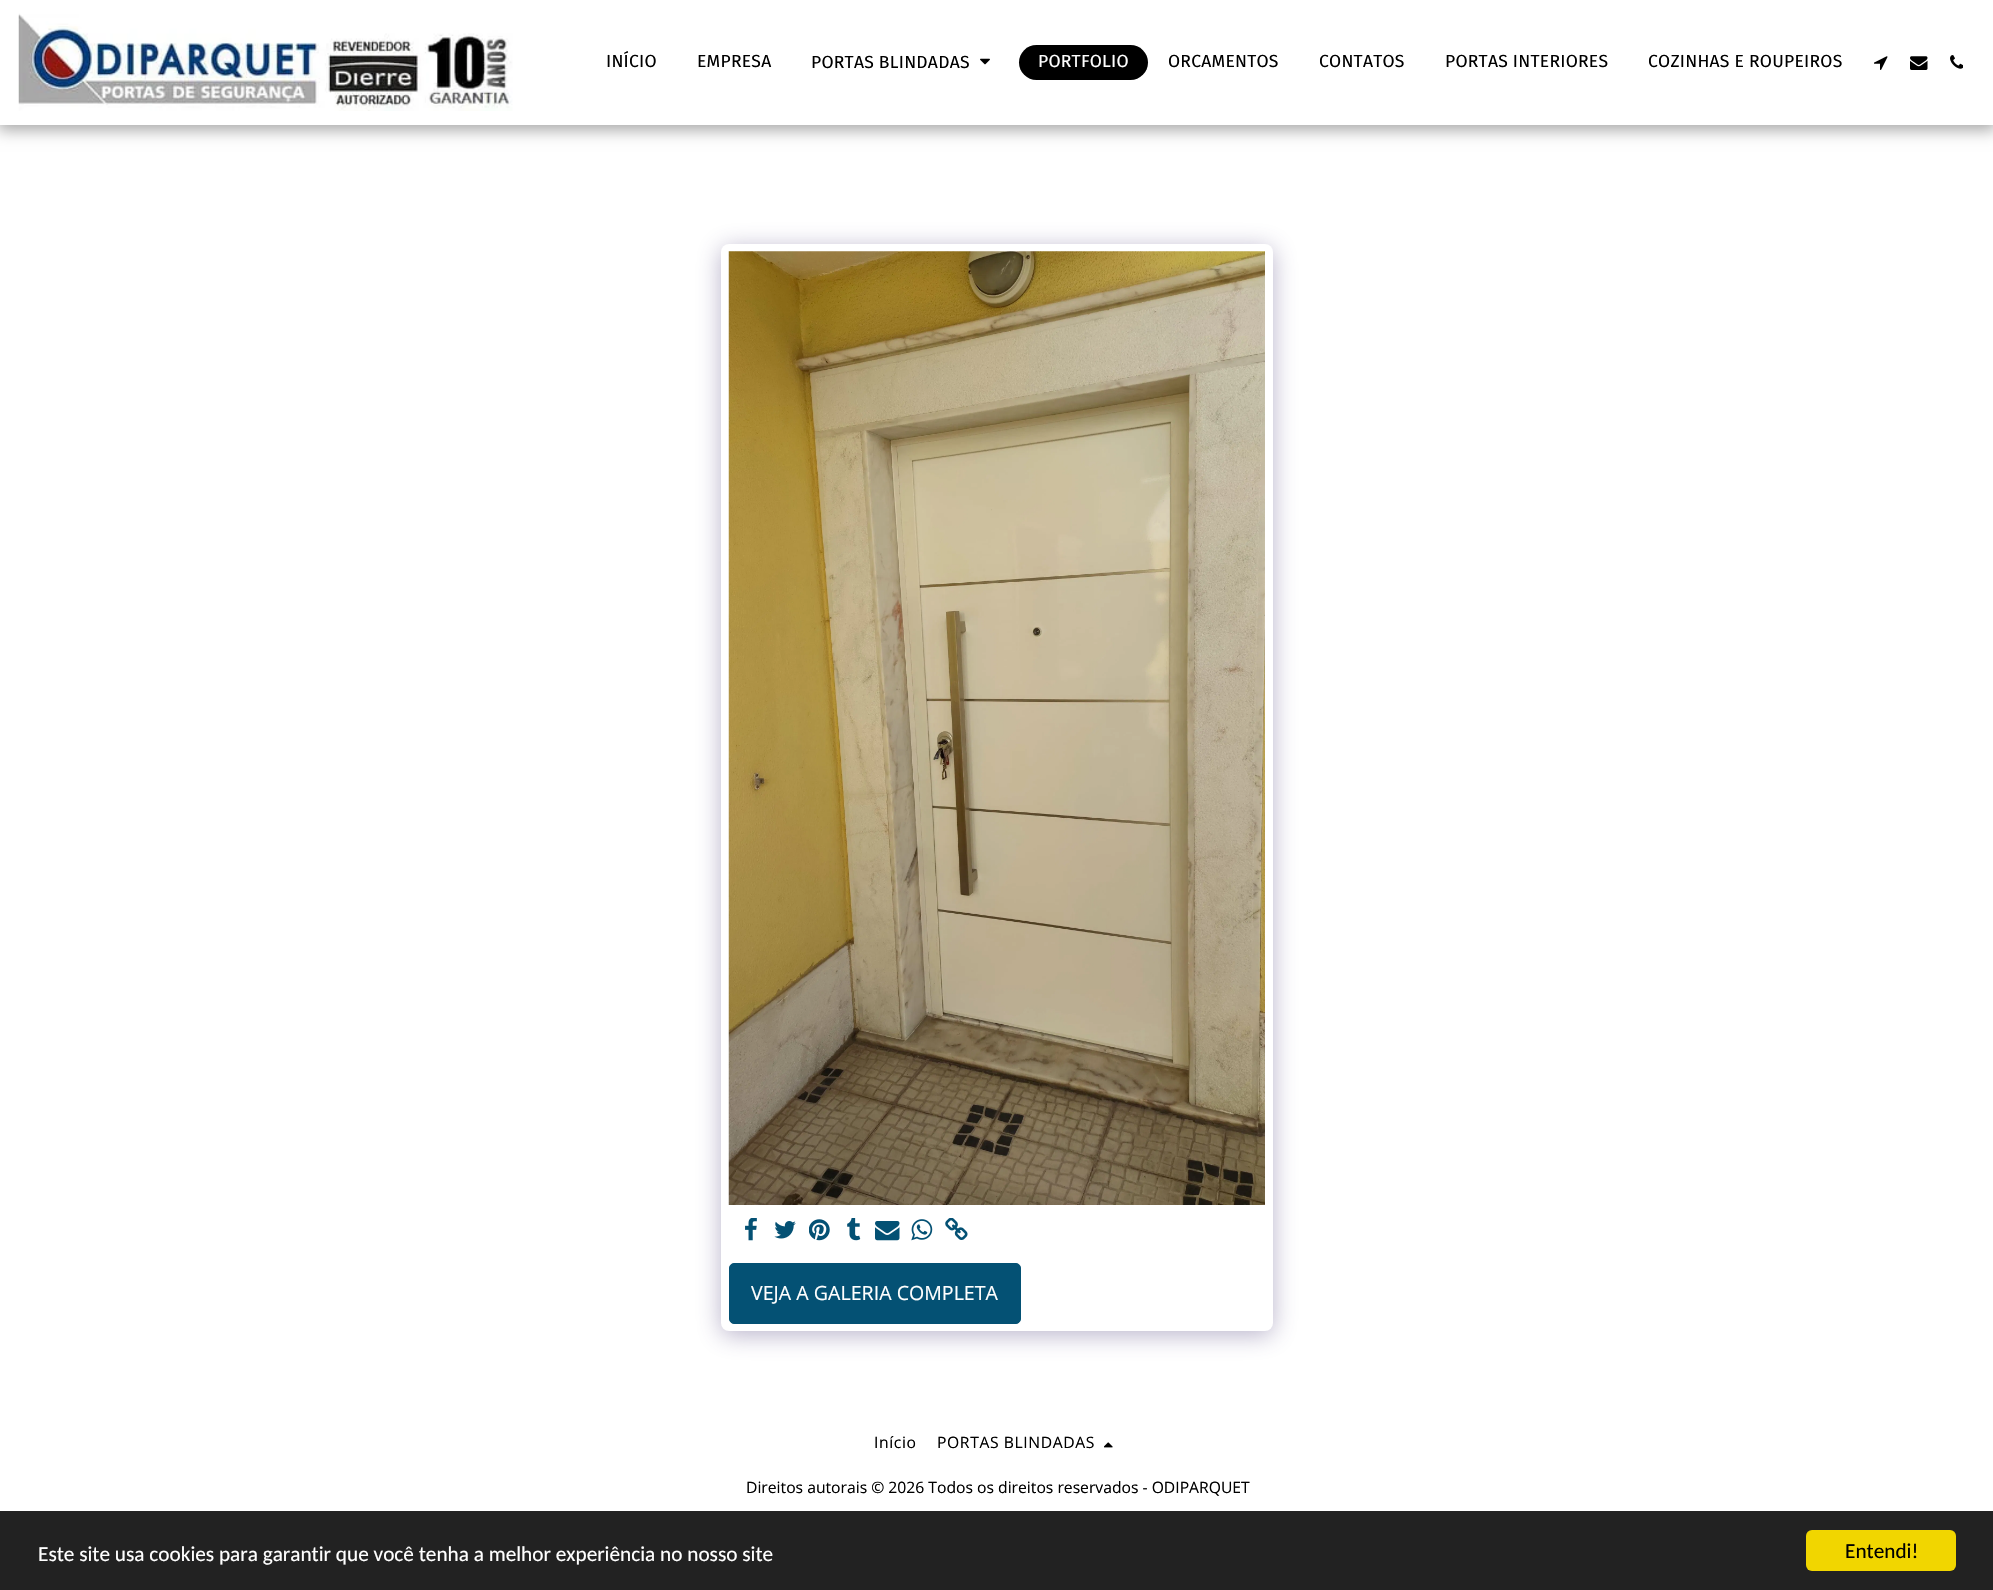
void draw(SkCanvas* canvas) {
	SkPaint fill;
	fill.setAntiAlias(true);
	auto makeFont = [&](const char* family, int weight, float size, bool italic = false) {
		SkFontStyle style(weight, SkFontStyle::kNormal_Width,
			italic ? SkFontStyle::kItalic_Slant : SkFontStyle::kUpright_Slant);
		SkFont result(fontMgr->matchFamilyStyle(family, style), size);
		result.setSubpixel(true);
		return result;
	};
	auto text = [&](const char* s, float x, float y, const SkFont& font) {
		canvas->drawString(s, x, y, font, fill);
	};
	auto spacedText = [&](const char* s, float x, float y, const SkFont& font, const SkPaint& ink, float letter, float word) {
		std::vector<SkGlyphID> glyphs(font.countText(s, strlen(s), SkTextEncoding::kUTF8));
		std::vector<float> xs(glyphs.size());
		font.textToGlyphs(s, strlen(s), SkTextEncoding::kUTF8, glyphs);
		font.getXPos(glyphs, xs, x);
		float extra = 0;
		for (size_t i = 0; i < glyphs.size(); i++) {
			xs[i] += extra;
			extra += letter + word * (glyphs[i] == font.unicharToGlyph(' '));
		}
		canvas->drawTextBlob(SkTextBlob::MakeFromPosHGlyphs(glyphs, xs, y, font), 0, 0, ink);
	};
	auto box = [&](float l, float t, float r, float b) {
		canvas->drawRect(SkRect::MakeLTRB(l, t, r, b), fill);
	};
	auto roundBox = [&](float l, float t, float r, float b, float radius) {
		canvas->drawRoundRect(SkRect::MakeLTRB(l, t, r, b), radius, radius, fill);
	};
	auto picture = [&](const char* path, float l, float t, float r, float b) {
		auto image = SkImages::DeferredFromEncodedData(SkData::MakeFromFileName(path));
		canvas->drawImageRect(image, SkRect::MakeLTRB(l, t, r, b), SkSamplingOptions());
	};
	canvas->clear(0xFFFFFFFF);
	fill.setColor(0x59000000);
	fill.setMaskFilter(SkMaskFilter::MakeBlur(kNormal_SkBlurStyle, 7.5f));
	canvas->drawRect(SkRect::MakeLTRB(-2, 0, 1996, 130), fill);
	fill.setMaskFilter(nullptr);
	fill.setColor(0xFFFFFFFF);
	box(0, 0, 1993, 125);
	picture("image0.png", 18, 13, 513, 111);
	picture("image1.png", 980, 58, 990, 65);
	fill.setColor(0xFF000000);
	roundBox(1019, 45, 1148, 80, 17.5f);
	picture("image2.png", 1874, 56, 1888, 70);
	picture("image3.png", 1910, 56, 1928, 70);
	picture("image4.png", 1950, 55, 1963, 69);
	fill.setColor(0x664D3F7A);
	fill.setMaskFilter(SkMaskFilter::MakeBlur(kNormal_SkBlurStyle, 12.5f));
	canvas->drawRoundRect(SkRect::MakeLTRB(721, 248, 1273, 1335), 8, 8, fill);
	fill.setMaskFilter(nullptr);
	fill.setColor(0xFFFFFFFF);
	roundBox(721, 244, 1273, 1331, 8);
	picture("image5.png", 728, 251, 1265, 1205);
	picture("image6.png", 745, 1218, 757, 1241);
	picture("image7.png", 774, 1221, 796, 1239);
	picture("image8.png", 809, 1219, 830, 1241);
	picture("image9.png", 847, 1218, 861, 1241);
	picture("image10.png", 875, 1221, 900, 1241);
	picture("image11.png", 911, 1219, 933, 1241);
	picture("image12.png", 945, 1218, 968, 1240);
	fill.setColor(0xFF045174);
	canvas->drawRoundRect(SkRect::MakeLTRB(729.5f, 1263.5f, 1020.5f, 1323.5f), 4.5f, 4.5f, fill);
	fill.setStyle(SkPaint::kStroke_Style);
	fill.setStrokeWidth(1);
	canvas->drawRoundRect(SkRect::MakeLTRB(729.5f, 1263.5f, 1020.5f, 1323.5f), 4.5f, 4.5f, fill);
	picture("image13.png", 1104, 1442, 1113, 1448);
	fill.setStyle(SkPaint::kFill_Style);
	fill.setColor(0xFF222222);
	box(0, 1511, 1993, 1590);
	fill.setColor(0xFFF1D600);
	roundBox(1806, 1530, 1956, 1571, 6);
	auto font1 = makeFont("Fira Sans", 400, 17.5f);
	fill.setColor(0xFF000000);
	spacedText("INÍCIO", 606, 67, font1, fill, 0.25f, 0);
	spacedText("EMPRESA", 697, 67, font1, fill, 0.25f, 0);
	spacedText("PORTAS BLINDADAS", 811, 68, font1, fill, 0.25f, 0);
	fill.setColor(0xFFFFFFFF);
	spacedText("PORTFOLIO", 1038, 67, font1, fill, 0.25f, 0);
	fill.setColor(0xFF000000);
	spacedText("ORCAMENTOS", 1168, 67, font1, fill, 0.25f, 0);
	spacedText("CONTATOS", 1319, 67, font1, fill, 0.25f, 0);
	spacedText("PORTAS INTERIORES", 1445, 67, font1, fill, 0.25f, 0);
	spacedText("COZINHAS E ROUPEIROS", 1648, 67, font1, fill, 0.25f, 0);
	auto font2 = makeFont("Open Sans", 400, 19.6f);
	fill.setColor(0xFFFFFFFF);
	text("VEJA A GALERIA COMPLETA", 751, 1300, font2);
	auto font3 = makeFont("Open Sans", 400, 15.7f);
	fill.setColor(0xFF000000);
	spacedText("Início", 874, 1448, font3, fill, 0.6f, 0);
	spacedText("PORTAS BLINDADAS", 937, 1448, font3, fill, 0.6f, 0);
	text("Direitos autorais © 2026 Todos os direitos reservados - ODIPARQUET", 746, 1493, font3);
	auto font4 = makeFont("Carlito", 400, 21.25f);
	fill.setColor(0xFFFFFFFF);
	text("Este site usa cookies para garantir que você tenha a melhor experiência no nosso site", 38, 1561, font4);
	fill.setColor(0xFF000000);
	text("Entendi!", 1845, 1558, font4);
}
